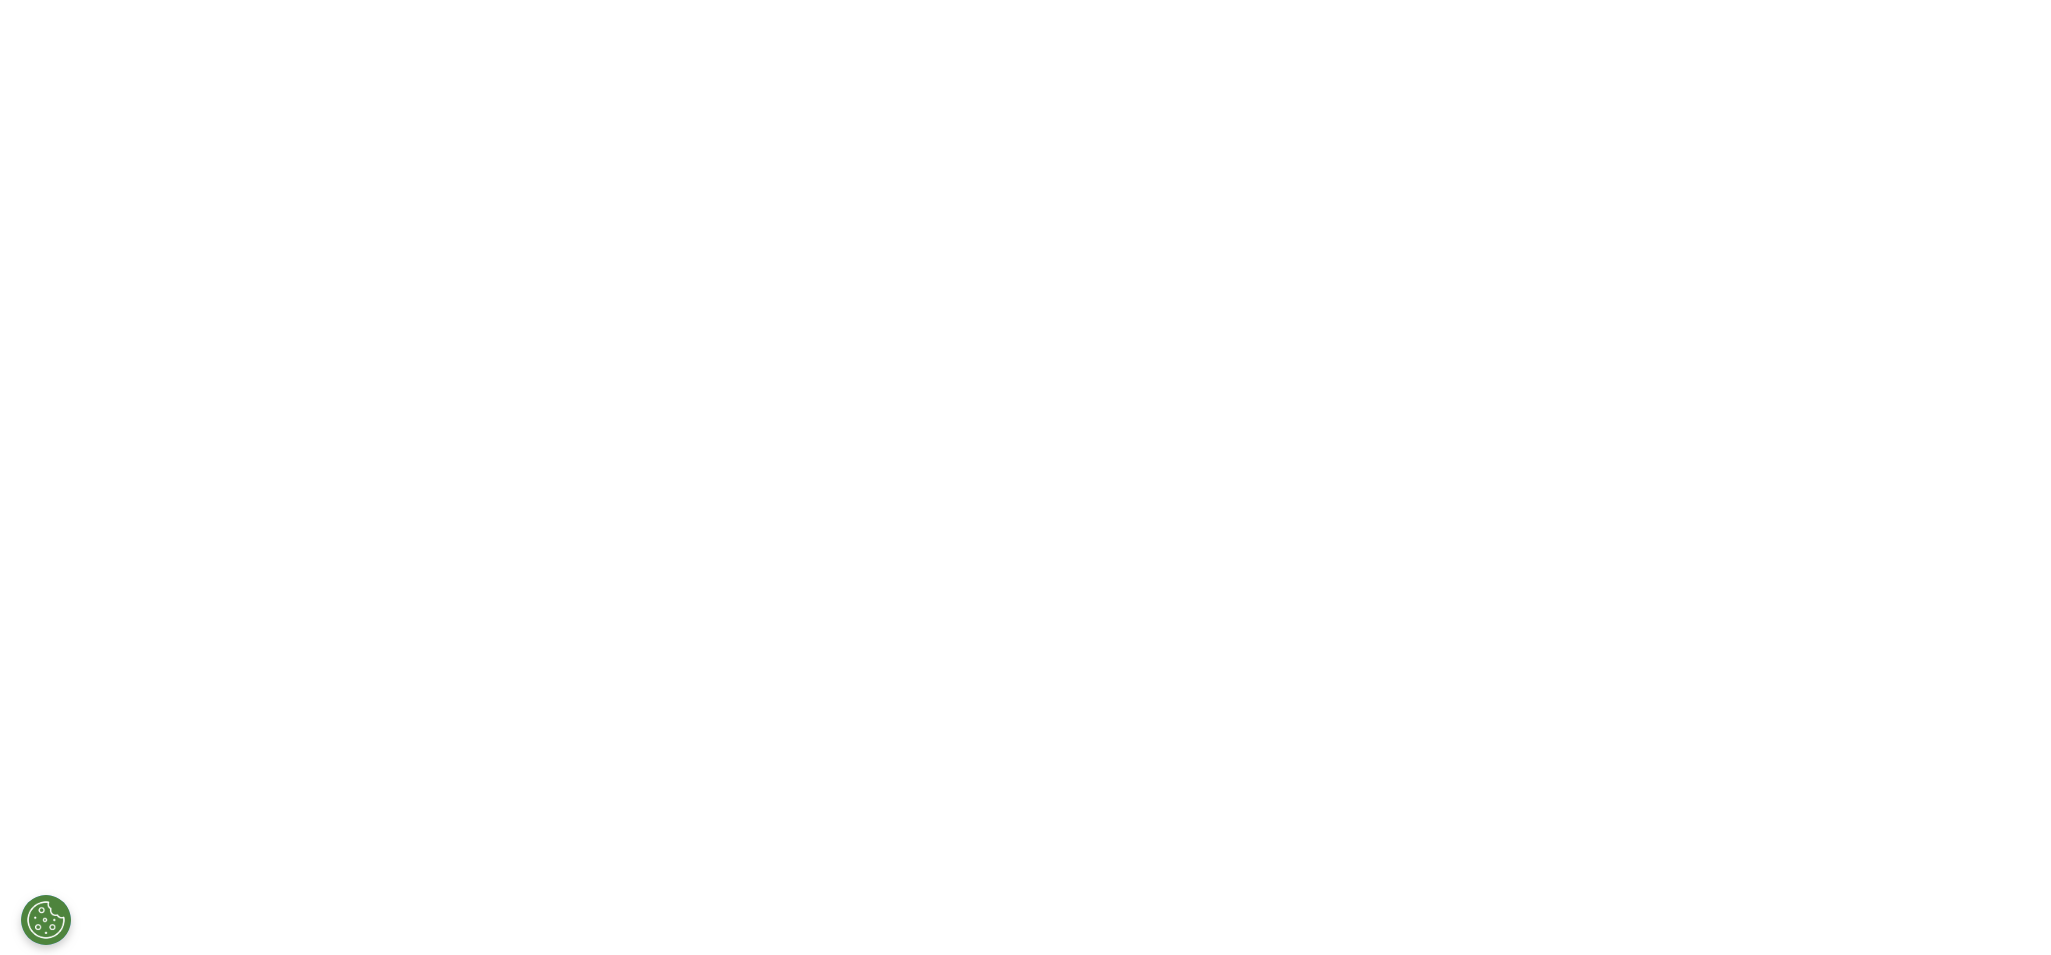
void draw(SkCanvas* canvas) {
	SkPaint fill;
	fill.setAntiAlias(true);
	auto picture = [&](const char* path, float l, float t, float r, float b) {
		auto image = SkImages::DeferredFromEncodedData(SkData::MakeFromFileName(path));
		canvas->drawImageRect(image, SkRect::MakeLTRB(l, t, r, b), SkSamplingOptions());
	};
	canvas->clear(0xFFFFFFFF);
	fill.setColor(0x33000000);
	fill.setMaskFilter(SkMaskFilter::MakeBlur(kNormal_SkBlurStyle, 4));
	canvas->drawRoundRect(SkRect::MakeLTRB(21, 899, 71, 949), 25, 25, fill);
	fill.setMaskFilter(nullptr);
	fill.setColor(0xFF6AAAE4);
	canvas->drawCircle(46, 920, 25, fill);
	picture("image0.png", 21, 895, 71, 945);
}
